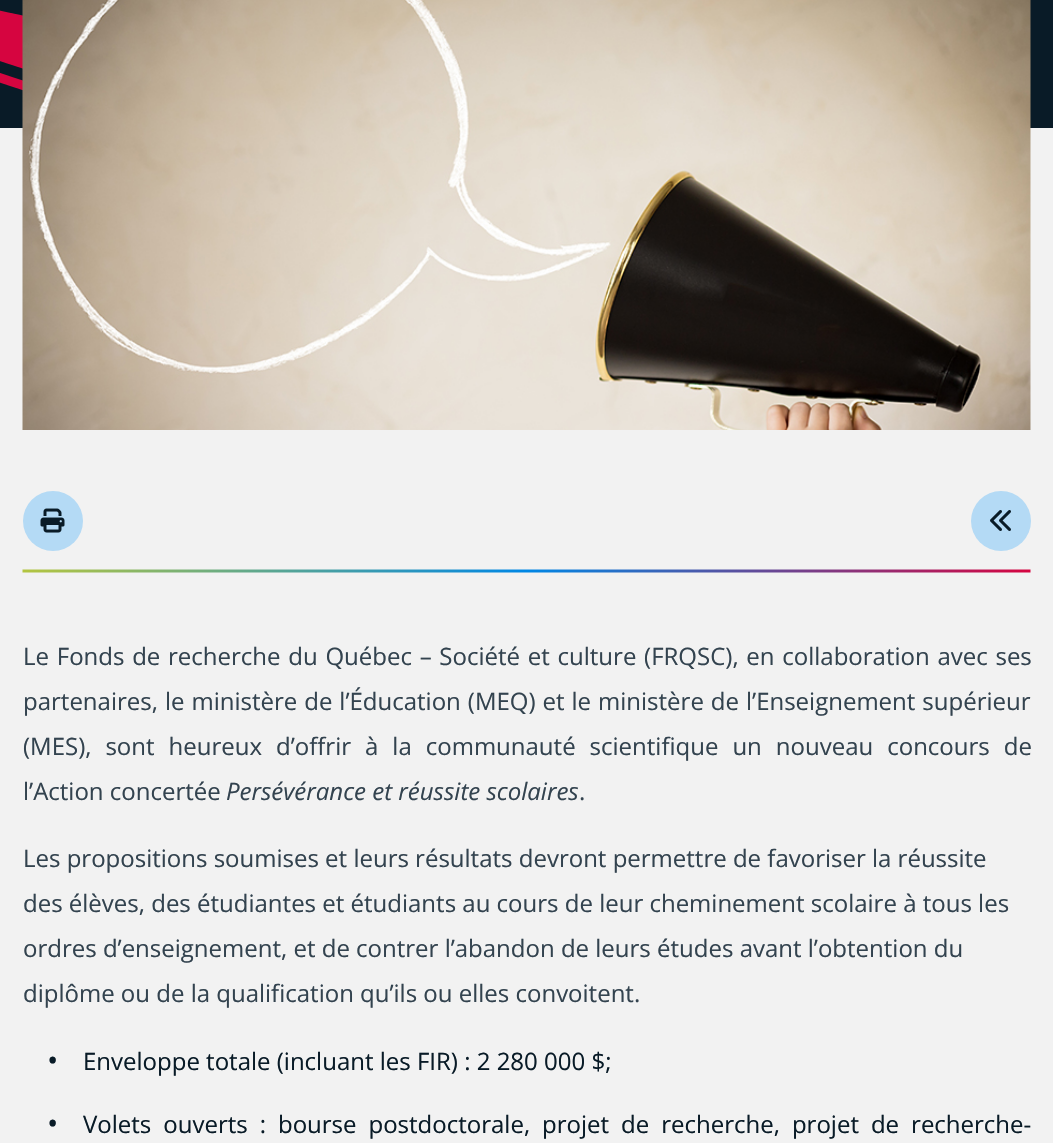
void draw(SkCanvas* canvas) {
	SkPaint fill;
	fill.setAntiAlias(true);
	auto makeFont = [&](const char* family, int weight, float size, bool italic = false) {
		SkFontStyle style(weight, SkFontStyle::kNormal_Width,
			italic ? SkFontStyle::kItalic_Slant : SkFontStyle::kUpright_Slant);
		SkFont result(fontMgr->matchFamilyStyle(family, style), size);
		result.setSubpixel(true);
		return result;
	};
	auto text = [&](const char* s, float x, float y, const SkFont& font) {
		canvas->drawString(s, x, y, font, fill);
	};
	auto spacedText = [&](const char* s, float x, float y, const SkFont& font, const SkPaint& ink, float letter, float word) {
		std::vector<SkGlyphID> glyphs(font.countText(s, strlen(s), SkTextEncoding::kUTF8));
		std::vector<float> xs(glyphs.size());
		font.textToGlyphs(s, strlen(s), SkTextEncoding::kUTF8, glyphs);
		font.getXPos(glyphs, xs, x);
		float extra = 0;
		for (size_t i = 0; i < glyphs.size(); i++) {
			xs[i] += extra;
			extra += letter + word * (glyphs[i] == font.unicharToGlyph(' '));
		}
		canvas->drawTextBlob(SkTextBlob::MakeFromPosHGlyphs(glyphs, xs, y, font), 0, 0, ink);
	};
	auto box = [&](float l, float t, float r, float b) {
		canvas->drawRect(SkRect::MakeLTRB(l, t, r, b), fill);
	};
	auto picture = [&](const char* path, float l, float t, float r, float b) {
		auto image = SkImages::DeferredFromEncodedData(SkData::MakeFromFileName(path));
		canvas->drawImageRect(image, SkRect::MakeLTRB(l, t, r, b), SkSamplingOptions());
	};
	canvas->clear(0xFFF2F2F2);
	fill.setColor(0xFF091B27);
	box(0, 0, 1053, 128);
	picture("image0.png", 0, 10, 23, 91);
	picture("image1.png", 22, 0, 1031, 430);
	fill.setColor(0xFFB4DAF5);
	canvas->drawCircle(53, 521, 30, fill);
	picture("image2.png", 40, 508, 65, 533);
	canvas->drawCircle(1001, 521, 30, fill);
	picture("image3.png", 990, 510, 1011, 531);
	picture("image4.png", 22, 569, 1031, 573);
	auto font1 = makeFont("Open Sans", 400, 24);
	fill.setColor(0xFF33434F);
	spacedText("Le Fonds de recherche du Québec – Société et culture (FRQSC), en collaboration avec ses", 23, 665, font1, fill, 0, 1.5f);
	spacedText("partenaires, le ministère de l’Éducation (MEQ) et le ministère de l’Enseignement supérieur", 23, 710, font1, fill, 0, 0.75f);
	spacedText("(MES), sont heureux d’offrir à la communauté scientifique un nouveau concours de", 23, 755, font1, fill, 0, 7.75f);
	text("l’Action concertée", 23, 800, font1);
	auto font2 = makeFont("Open Sans", 400, 24, true);
	text("Persévérance et réussite scolaires", 226, 800, font2);
	text(".", 579, 800, font1);
	text("Les propositions soumises et leurs résultats devront permettre de favoriser la réussite", 23, 867, font1);
	text("des élèves, des étudiantes et étudiants au cours de leur cheminement scolaire à tous les", 23, 912, font1);
	text("ordres d’enseignement, et de contrer l’abandon de leurs études avant l’obtention du", 23, 957, font1);
	text("diplôme ou de la qualification qu’ils ou elles convoitent.", 23, 1002, font1);
	auto font3 = makeFont("Open Sans", 400, 30);
	fill.setColor(0xFF091B27);
	text("•", 47, 1071, font3);
	text("Enveloppe totale (incluant les FIR) : 2 280 000 $;", 83, 1070, font1);
	text("•", 47, 1134, font3);
	spacedText("Volets ouverts : bourse postdoctorale, projet de recherche, projet de recherche-", 83, 1133, font1, fill, 0, 5.75f);
}
